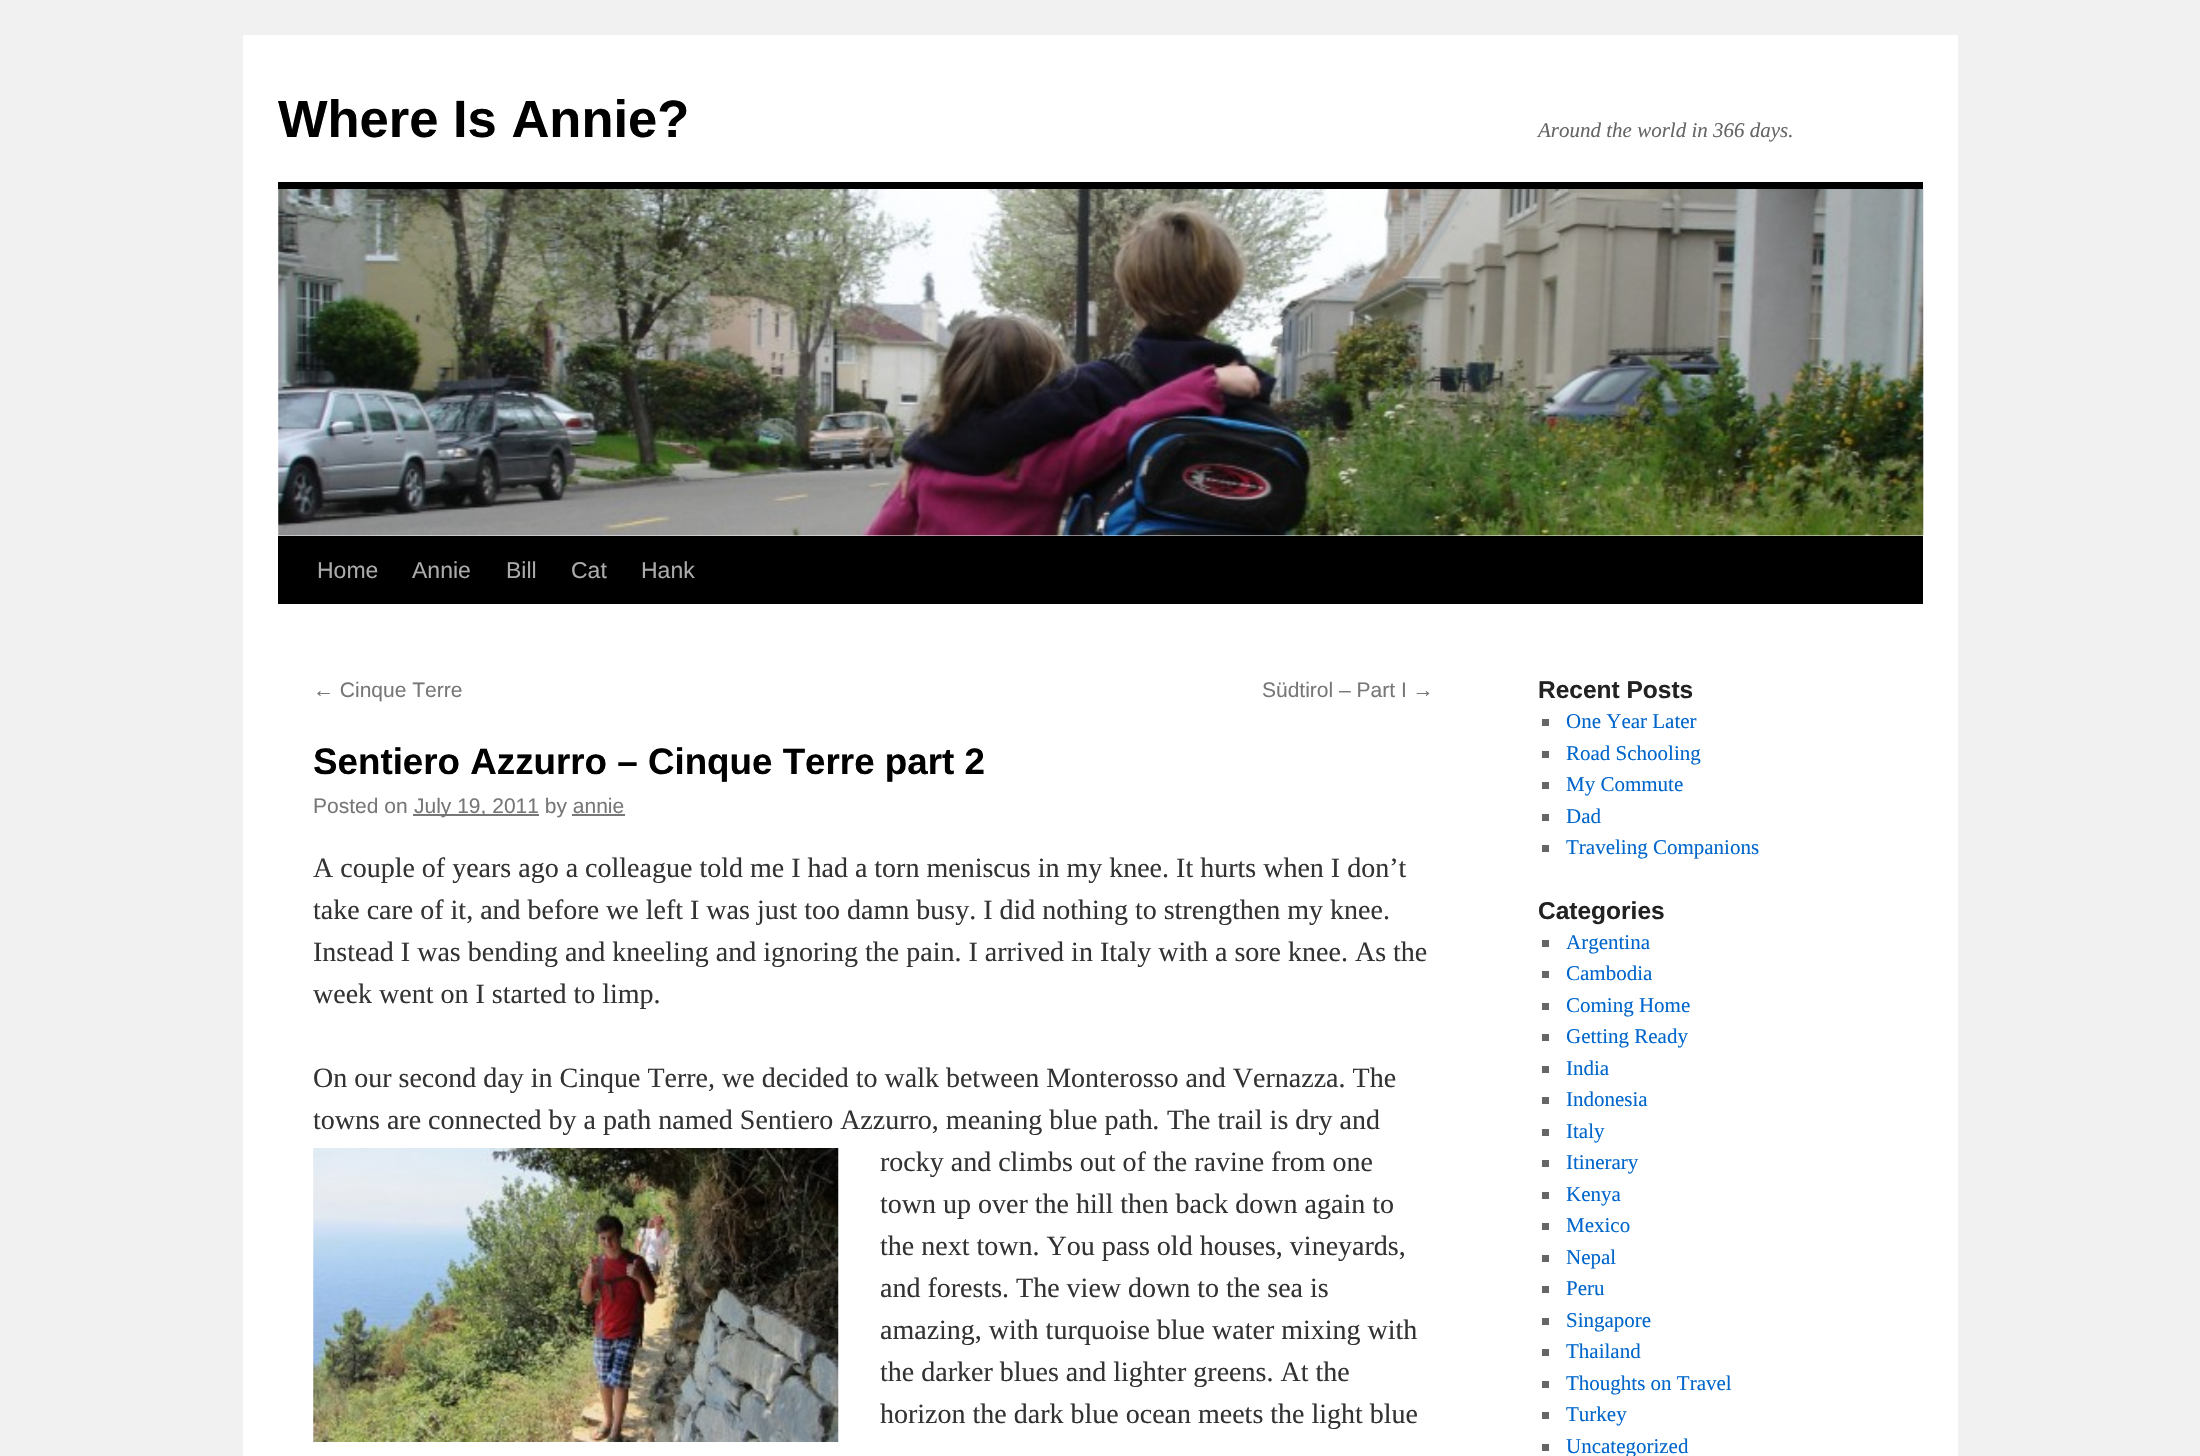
void draw(SkCanvas* canvas) {
	SkPaint fill;
	fill.setAntiAlias(true);
	auto makeFont = [&](const char* family, int weight, float size, bool italic = false) {
		SkFontStyle style(weight, SkFontStyle::kNormal_Width,
			italic ? SkFontStyle::kItalic_Slant : SkFontStyle::kUpright_Slant);
		SkFont result(fontMgr->matchFamilyStyle(family, style), size);
		result.setSubpixel(true);
		return result;
	};
	auto text = [&](const char* s, float x, float y, const SkFont& font) {
		canvas->drawString(s, x, y, font, fill);
	};
	auto box = [&](float l, float t, float r, float b) {
		canvas->drawRect(SkRect::MakeLTRB(l, t, r, b), fill);
	};
	auto picture = [&](const char* path, float l, float t, float r, float b) {
		auto image = SkImages::DeferredFromEncodedData(SkData::MakeFromFileName(path));
		canvas->drawImageRect(image, SkRect::MakeLTRB(l, t, r, b), SkSamplingOptions());
	};
	canvas->clear(0xFFF1F1F1);
	fill.setColor(0xFFFFFFFF);
	box(243, 35, 1958, 1456);
	fill.setColor(0xFF000000);
	box(278, 182, 1923, 189);
	box(278, 536, 1923, 604);
	picture("image0.png", 278, 189, 1924, 536);
	fill.setColor(0xFF777777);
	box(413, 814, 539, 816);
	box(572, 814, 625, 816);
	picture("image1.png", 313, 1148, 839, 1442);
	fill.setColor(0xFF666666);
	box(1542, 719, 1549, 726);
	box(1542, 751, 1549, 758);
	box(1542, 782, 1549, 789);
	box(1542, 814, 1549, 821);
	box(1542, 845, 1549, 852);
	box(1542, 940, 1549, 947);
	box(1542, 971, 1549, 978);
	box(1542, 1003, 1549, 1010);
	box(1542, 1034, 1549, 1041);
	box(1542, 1066, 1549, 1073);
	box(1542, 1097, 1549, 1104);
	box(1542, 1129, 1549, 1136);
	box(1542, 1160, 1549, 1167);
	box(1542, 1192, 1549, 1199);
	box(1542, 1223, 1549, 1230);
	box(1542, 1255, 1549, 1262);
	box(1542, 1286, 1549, 1293);
	box(1542, 1318, 1549, 1325);
	box(1542, 1349, 1549, 1356);
	box(1542, 1381, 1549, 1388);
	box(1542, 1412, 1549, 1419);
	box(1542, 1444, 1549, 1451);
	auto font1 = makeFont("Liberation Sans", 700, 52.5f);
	fill.setColor(0xFF000000);
	text("Where Is Annie?", 278, 137, font1);
	auto font2 = makeFont("Liberation Serif", 400, 21, true);
	fill.setColor(0xFF666666);
	text("Around the world in 366 days.", 1538, 137, font2);
	auto font3 = makeFont("Liberation Sans", 400, 23);
	fill.setColor(0xFFAAAAAA);
	text("Home", 317, 578, font3);
	text("Annie", 412, 578, font3);
	text("Bill", 506, 578, font3);
	text("Cat", 571, 578, font3);
	text("Hank", 641, 578, font3);
	auto font4 = makeFont("Liberation Sans", 400, 21);
	fill.setColor(0xFF777777);
	text("← Cinque Terre", 313, 697, font4);
	text("Südtirol – Part I →", 1262, 697, font4);
	auto font5 = makeFont("Liberation Sans", 700, 36.75f);
	fill.setColor(0xFF000000);
	text("Sentiero Azzurro – Cinque Terre part 2", 313, 774, font5);
	fill.setColor(0xFF777777);
	text("Posted on", 313, 813, font4);
	text("July 19, 2011 by annie", 414, 813, font4);
	auto font6 = makeFont("Liberation Serif", 400, 28);
	fill.setColor(0xFF333333);
	text("A couple of years ago a colleague told me I had a torn meniscus in my knee. It hurts when I don’t", 313, 877, font6);
	text("take care of it, and before we left I was just too damn busy. I did nothing to strengthen my knee.", 313, 919, font6);
	text("Instead I was bending and kneeling and ignoring the pain. I arrived in Italy with a sore knee. As the", 313, 961, font6);
	text("week went on I started to limp.", 313, 1003, font6);
	text("On our second day in Cinque Terre", 313, 1087, font6);
	auto font7 = makeFont("Liberation Serif", 400, 28, true);
	text(",", 708, 1087, font7);
	text("we decided to walk between Monterosso and Vernazza. The", 722, 1087, font6);
	text("towns are connected by a path named Sentiero Azzurro, meaning blue path", 313, 1129, font6);
	text(".", 1153, 1129, font7);
	text("The trail is dry and", 1167, 1129, font6);
	text("rocky and climbs out of the ravine from one", 880, 1171, font6);
	text("town up over the hill then back down again to", 880, 1213, font6);
	text("the next town. You pass old houses, vineyards,", 880, 1255, font6);
	text("and forests. The view down to the sea is", 880, 1297, font6);
	text("amazing, with turquoise blue water mixing with", 880, 1339, font6);
	text("the darker blues and lighter greens. At the", 880, 1381, font6);
	text("horizon the dark blue ocean meets the light blue", 880, 1423, font6);
	auto font8 = makeFont("Liberation Sans", 700, 24.5f);
	fill.setColor(0xFF222222);
	text("Recent Posts", 1538, 698, font8);
	auto font9 = makeFont("Liberation Serif", 400, 21);
	fill.setColor(0xFF0066CC);
	text("One Year Later", 1566, 728, font9);
	text("Road Schooling", 1566, 760, font9);
	text("My Commute", 1566, 791, font9);
	text("Dad", 1566, 823, font9);
	text("Traveling Companions", 1566, 854, font9);
	fill.setColor(0xFF222222);
	text("Categories", 1538, 919, font8);
	fill.setColor(0xFF0066CC);
	text("Argentina", 1566, 949, font9);
	text("Cambodia", 1566, 980, font9);
	text("Coming Home", 1566, 1012, font9);
	text("Getting Ready", 1566, 1043, font9);
	text("India", 1566, 1075, font9);
	text("Indonesia", 1566, 1106, font9);
	text("Italy", 1566, 1138, font9);
	text("Itinerary", 1566, 1169, font9);
	text("Kenya", 1566, 1201, font9);
	text("Mexico", 1566, 1232, font9);
	text("Nepal", 1566, 1264, font9);
	text("Peru", 1566, 1295, font9);
	text("Singapore", 1566, 1327, font9);
	text("Thailand", 1566, 1358, font9);
	text("Thoughts on Travel", 1566, 1390, font9);
	text("Turkey", 1566, 1421, font9);
	text("Uncategorized", 1566, 1453, font9);
}
